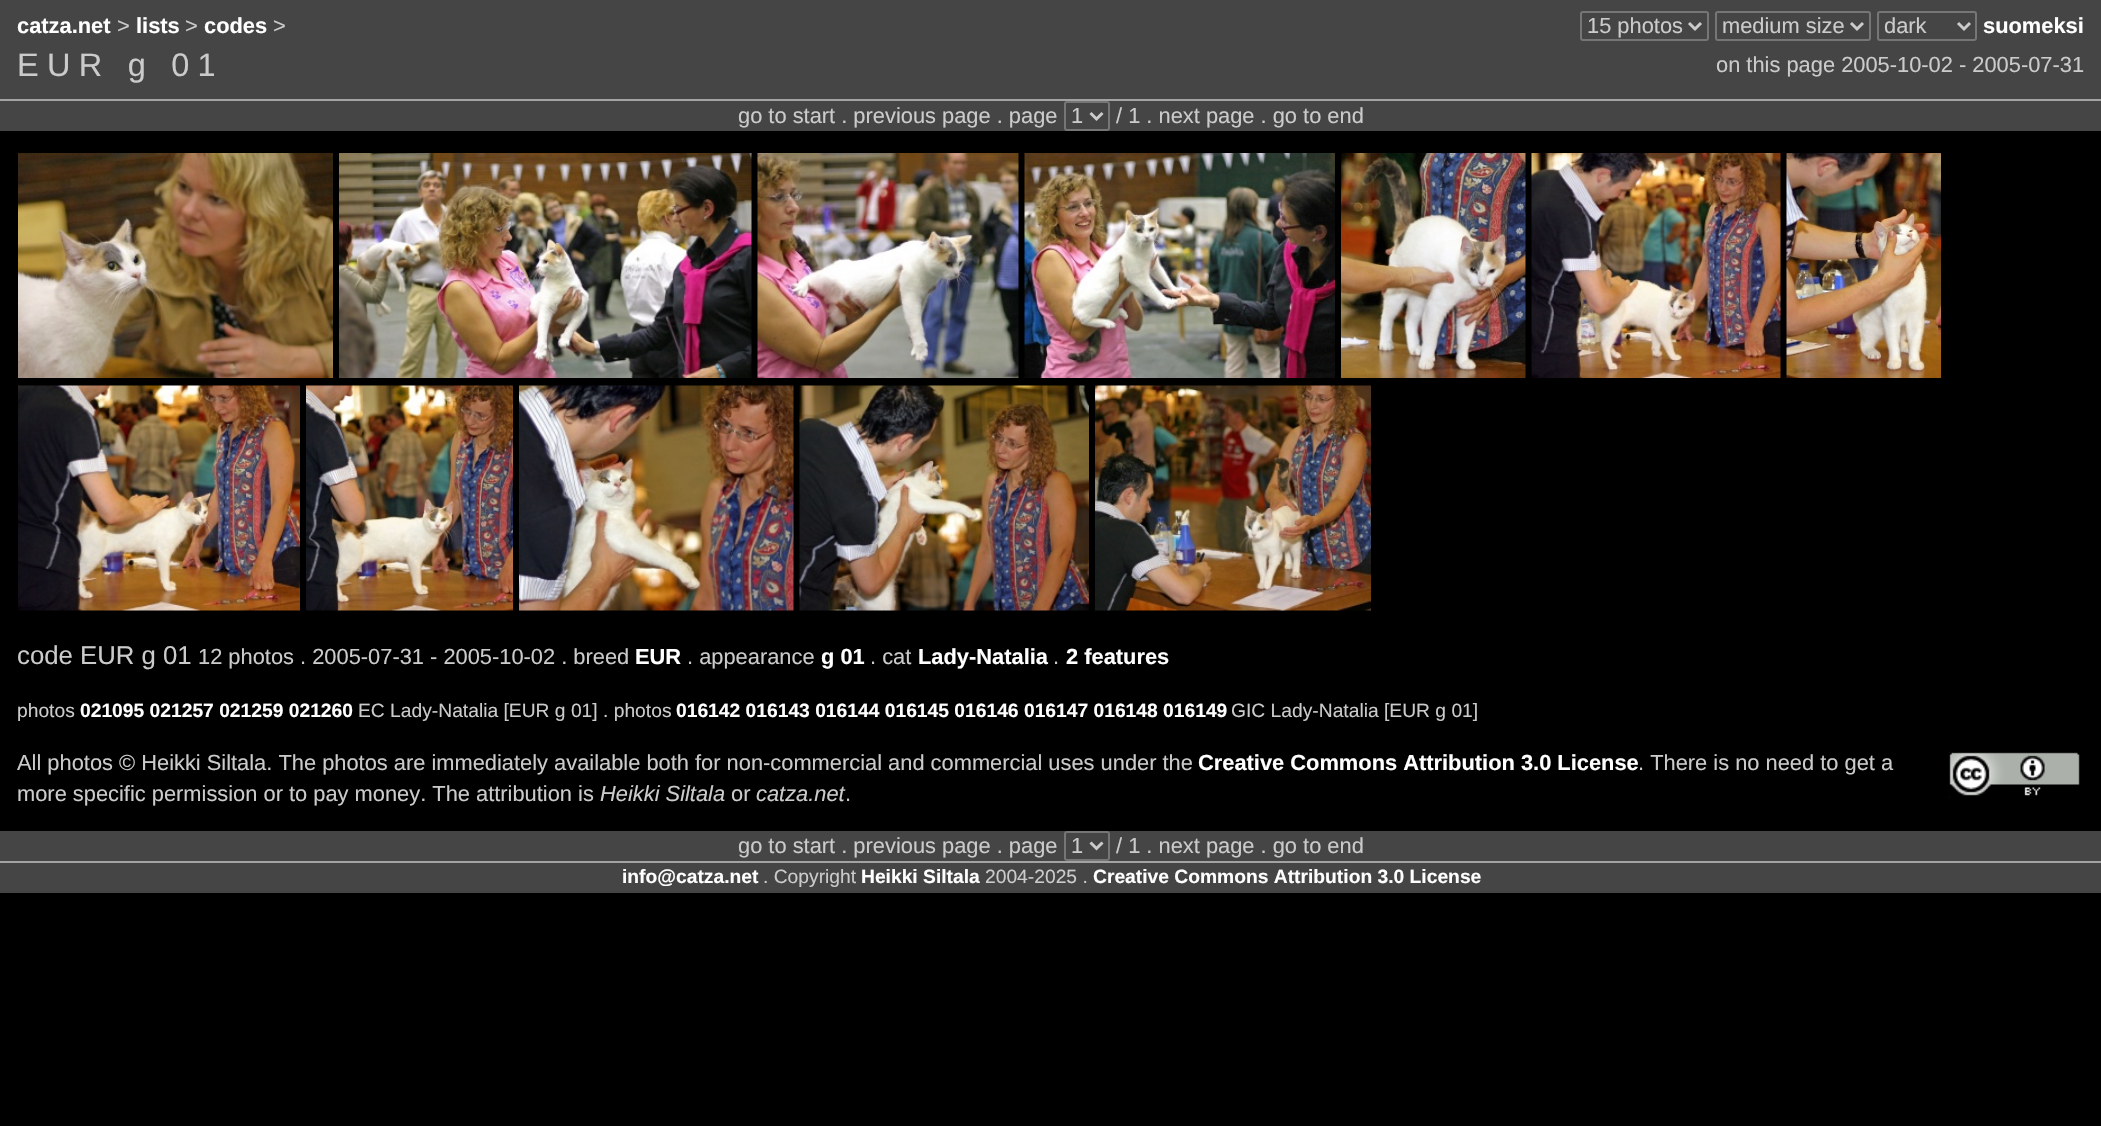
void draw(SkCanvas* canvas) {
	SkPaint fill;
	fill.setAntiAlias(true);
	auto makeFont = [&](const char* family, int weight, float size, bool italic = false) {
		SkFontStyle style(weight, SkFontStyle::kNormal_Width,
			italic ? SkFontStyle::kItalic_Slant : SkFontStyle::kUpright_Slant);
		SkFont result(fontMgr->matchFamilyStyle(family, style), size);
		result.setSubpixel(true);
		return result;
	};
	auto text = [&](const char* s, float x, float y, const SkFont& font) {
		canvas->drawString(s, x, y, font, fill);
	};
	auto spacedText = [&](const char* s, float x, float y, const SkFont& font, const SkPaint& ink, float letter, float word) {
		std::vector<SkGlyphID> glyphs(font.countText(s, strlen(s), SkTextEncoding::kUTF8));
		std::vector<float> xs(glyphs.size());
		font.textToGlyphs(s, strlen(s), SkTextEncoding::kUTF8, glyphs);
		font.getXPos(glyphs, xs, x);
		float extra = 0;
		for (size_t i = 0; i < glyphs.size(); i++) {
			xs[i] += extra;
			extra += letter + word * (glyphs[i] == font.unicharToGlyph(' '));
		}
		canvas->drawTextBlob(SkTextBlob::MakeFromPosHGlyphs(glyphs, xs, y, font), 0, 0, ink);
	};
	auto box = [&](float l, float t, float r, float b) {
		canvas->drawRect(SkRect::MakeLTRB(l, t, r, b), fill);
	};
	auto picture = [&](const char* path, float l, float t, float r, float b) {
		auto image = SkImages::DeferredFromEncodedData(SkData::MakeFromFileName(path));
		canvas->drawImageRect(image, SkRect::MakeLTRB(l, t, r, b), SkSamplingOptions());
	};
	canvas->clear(0xFF000000);
	fill.setColor(0xFF454545);
	box(0, 0, 2101, 131);
	fill.setStyle(SkPaint::kStroke_Style);
	fill.setStrokeWidth(2);
	fill.setColor(0xFF767676);
	canvas->drawRoundRect(SkRect::MakeLTRB(1581, 12, 1708, 40), 2, 2, fill);
	fill.setStrokeWidth(3);
	fill.setColor(0xFFCBCBCB);
	canvas->drawPath(SkPathBuilder().moveTo(1689, 23).lineTo(1695, 29).lineTo(1701, 23).detach(), fill);
	fill.setStrokeWidth(2);
	fill.setColor(0xFF767676);
	canvas->drawRoundRect(SkRect::MakeLTRB(1716, 12, 1870, 40), 2, 2, fill);
	fill.setStrokeWidth(3);
	fill.setColor(0xFFCBCBCB);
	canvas->drawPath(SkPathBuilder().moveTo(1851, 23).lineTo(1857, 29).lineTo(1863, 23).detach(), fill);
	fill.setStrokeWidth(2);
	fill.setColor(0xFF767676);
	canvas->drawRoundRect(SkRect::MakeLTRB(1878, 12, 1976, 40), 2, 2, fill);
	fill.setStrokeWidth(3);
	fill.setColor(0xFFCBCBCB);
	canvas->drawPath(SkPathBuilder().moveTo(1958, 23).lineTo(1964, 29).lineTo(1970, 23).detach(), fill);
	fill.setStyle(SkPaint::kFill_Style);
	fill.setColor(0xFFA3A3A3);
	box(0, 99, 2101, 101);
	fill.setStyle(SkPaint::kStroke_Style);
	fill.setStrokeWidth(2);
	fill.setColor(0xFF767676);
	canvas->drawRoundRect(SkRect::MakeLTRB(1065, 102, 1109, 130), 2, 2, fill);
	fill.setStrokeWidth(3);
	fill.setColor(0xFFCBCBCB);
	canvas->drawPath(SkPathBuilder().moveTo(1090.5f, 113).lineTo(1096.5f, 119).lineTo(1102.5f, 113).detach(), fill);
	picture("image0.png", 18, 153, 333, 378);
	picture("image1.png", 339, 153, 752, 378);
	picture("image2.png", 757, 153, 1019, 378);
	picture("image3.png", 1024, 153, 1335, 378);
	picture("image4.png", 1341, 153, 1526, 378);
	picture("image5.png", 1531, 153, 1781, 378);
	picture("image6.png", 1786, 153, 1941, 378);
	picture("image7.png", 18, 385, 300, 611);
	picture("image8.png", 306, 385, 513, 611);
	picture("image9.png", 519, 385, 794, 611);
	picture("image10.png", 799, 385, 1089, 611);
	picture("image11.png", 1095, 385, 1371, 611);
	picture("image12.png", 1948, 751, 2080, 798);
	fill.setStyle(SkPaint::kFill_Style);
	fill.setColor(0xFF454545);
	box(0, 831, 2101, 893);
	fill.setColor(0xFFA3A3A3);
	box(0, 861, 2101, 863);
	fill.setStyle(SkPaint::kStroke_Style);
	fill.setStrokeWidth(2);
	fill.setColor(0xFF767676);
	canvas->drawRoundRect(SkRect::MakeLTRB(1065, 832, 1109, 860), 2, 2, fill);
	fill.setStrokeWidth(3);
	fill.setColor(0xFFCBCBCB);
	canvas->drawPath(SkPathBuilder().moveTo(1090.5f, 842.5f).lineTo(1096.5f, 848.5f).lineTo(1102.5f, 842.5f).detach(), fill);
	auto font1 = makeFont("Liberation Sans", 700, 21.85f);
	fill.setStyle(SkPaint::kFill_Style);
	fill.setColor(0xFFFFFFFF);
	text("catza.net", 17, 33, font1);
	auto font2 = makeFont("Liberation Sans", 400, 21.85f);
	fill.setColor(0xFFCBCBCB);
	text(">", 117, 33, font2);
	fill.setColor(0xFFFFFFFF);
	text("lists", 136, 33, font1);
	fill.setColor(0xFFCBCBCB);
	text(">", 185, 33, font2);
	fill.setColor(0xFFFFFFFF);
	text("codes", 204, 33, font1);
	fill.setColor(0xFFCBCBCB);
	text(">", 273, 33, font2);
	text("15 photos", 1587, 33, font2);
	text("medium size", 1722, 33, font2);
	text("dark", 1884, 33, font2);
	fill.setColor(0xFFFFFFFF);
	text("suomeksi", 1983, 33, font1);
	auto font3 = makeFont("Liberation Sans", 400, 32.5f);
	fill.setColor(0xFFCBCBCB);
	spacedText("EUR g 01", 17, 76, font3, fill, 8.25f, 0);
	text("on this page 2005-10-02 - 2005-07-31", 1716, 72, font2);
	text("go to start . previous page . page", 738, 123, font2);
	text("1", 1071, 123, font2);
	text("/ 1 . next page . go to end", 1116, 123, font2);
	auto font4 = makeFont("Liberation Sans", 400, 25.75f);
	text("code EUR g 01", 17, 664, font4);
	text("12 photos . 2005-07-31 - 2005-10-02 . breed", 198, 664, font2);
	fill.setColor(0xFFFFFFFF);
	text("EUR", 635, 664, font1);
	fill.setColor(0xFFCBCBCB);
	text(". appearance", 687, 664, font2);
	fill.setColor(0xFFFFFFFF);
	text("g 01", 821, 664, font1);
	fill.setColor(0xFFCBCBCB);
	text(". cat", 870, 664, font2);
	fill.setColor(0xFFFFFFFF);
	text("Lady-Natalia", 918, 664, font1);
	fill.setColor(0xFFCBCBCB);
	text(".", 1053, 664, font2);
	fill.setColor(0xFFFFFFFF);
	text("2 features", 1066, 664, font1);
	auto font5 = makeFont("Liberation Sans", 400, 19.25f);
	fill.setColor(0xFFCBCBCB);
	text("photos", 17, 717, font5);
	auto font6 = makeFont("Liberation Sans", 700, 19.25f);
	fill.setColor(0xFFFFFFFF);
	text("021095 021257 021259 021260", 80, 717, font6);
	fill.setColor(0xFFCBCBCB);
	text("EC Lady-Natalia [EUR g 01] . photos", 358, 717, font5);
	fill.setColor(0xFFFFFFFF);
	text("016142 016143 016144 016145 016146 016147 016148 016149", 676, 717, font6);
	fill.setColor(0xFFCBCBCB);
	text("GIC Lady-Natalia [EUR g 01]", 1231, 717, font5);
	text("All photos © Heikki Siltala. The photos are immediately available both for non-commercial and commercial uses under the", 17, 770, font2);
	fill.setColor(0xFFFFFFFF);
	text("Creative Commons Attribution 3.0 License", 1198, 770, font1);
	fill.setColor(0xFFCBCBCB);
	text(". There is no need to get a", 1638, 770, font2);
	text("more specific permission or to pay money. The attribution is", 17, 801, font2);
	auto font7 = makeFont("Liberation Sans", 400, 21.85f, true);
	text("Heikki Siltala", 600, 801, font7);
	text("or", 731, 801, font2);
	text("catza.net", 756, 801, font7);
	text(".", 845, 801, font2);
	text("go to start . previous page . page", 738, 853, font2);
	text("1", 1071, 853, font2);
	text("/ 1 . next page . go to end", 1116, 853, font2);
	fill.setColor(0xFFFFFFFF);
	text("info@catza.net", 622, 883, font6);
	fill.setColor(0xFFCBCBCB);
	text(". Copyright", 763, 883, font5);
	fill.setColor(0xFFFFFFFF);
	text("Heikki Siltala", 861, 883, font6);
	fill.setColor(0xFFCBCBCB);
	text("2004-2025 .", 985, 883, font5);
	fill.setColor(0xFFFFFFFF);
	text("Creative Commons Attribution 3.0 License", 1093, 883, font6);
}
